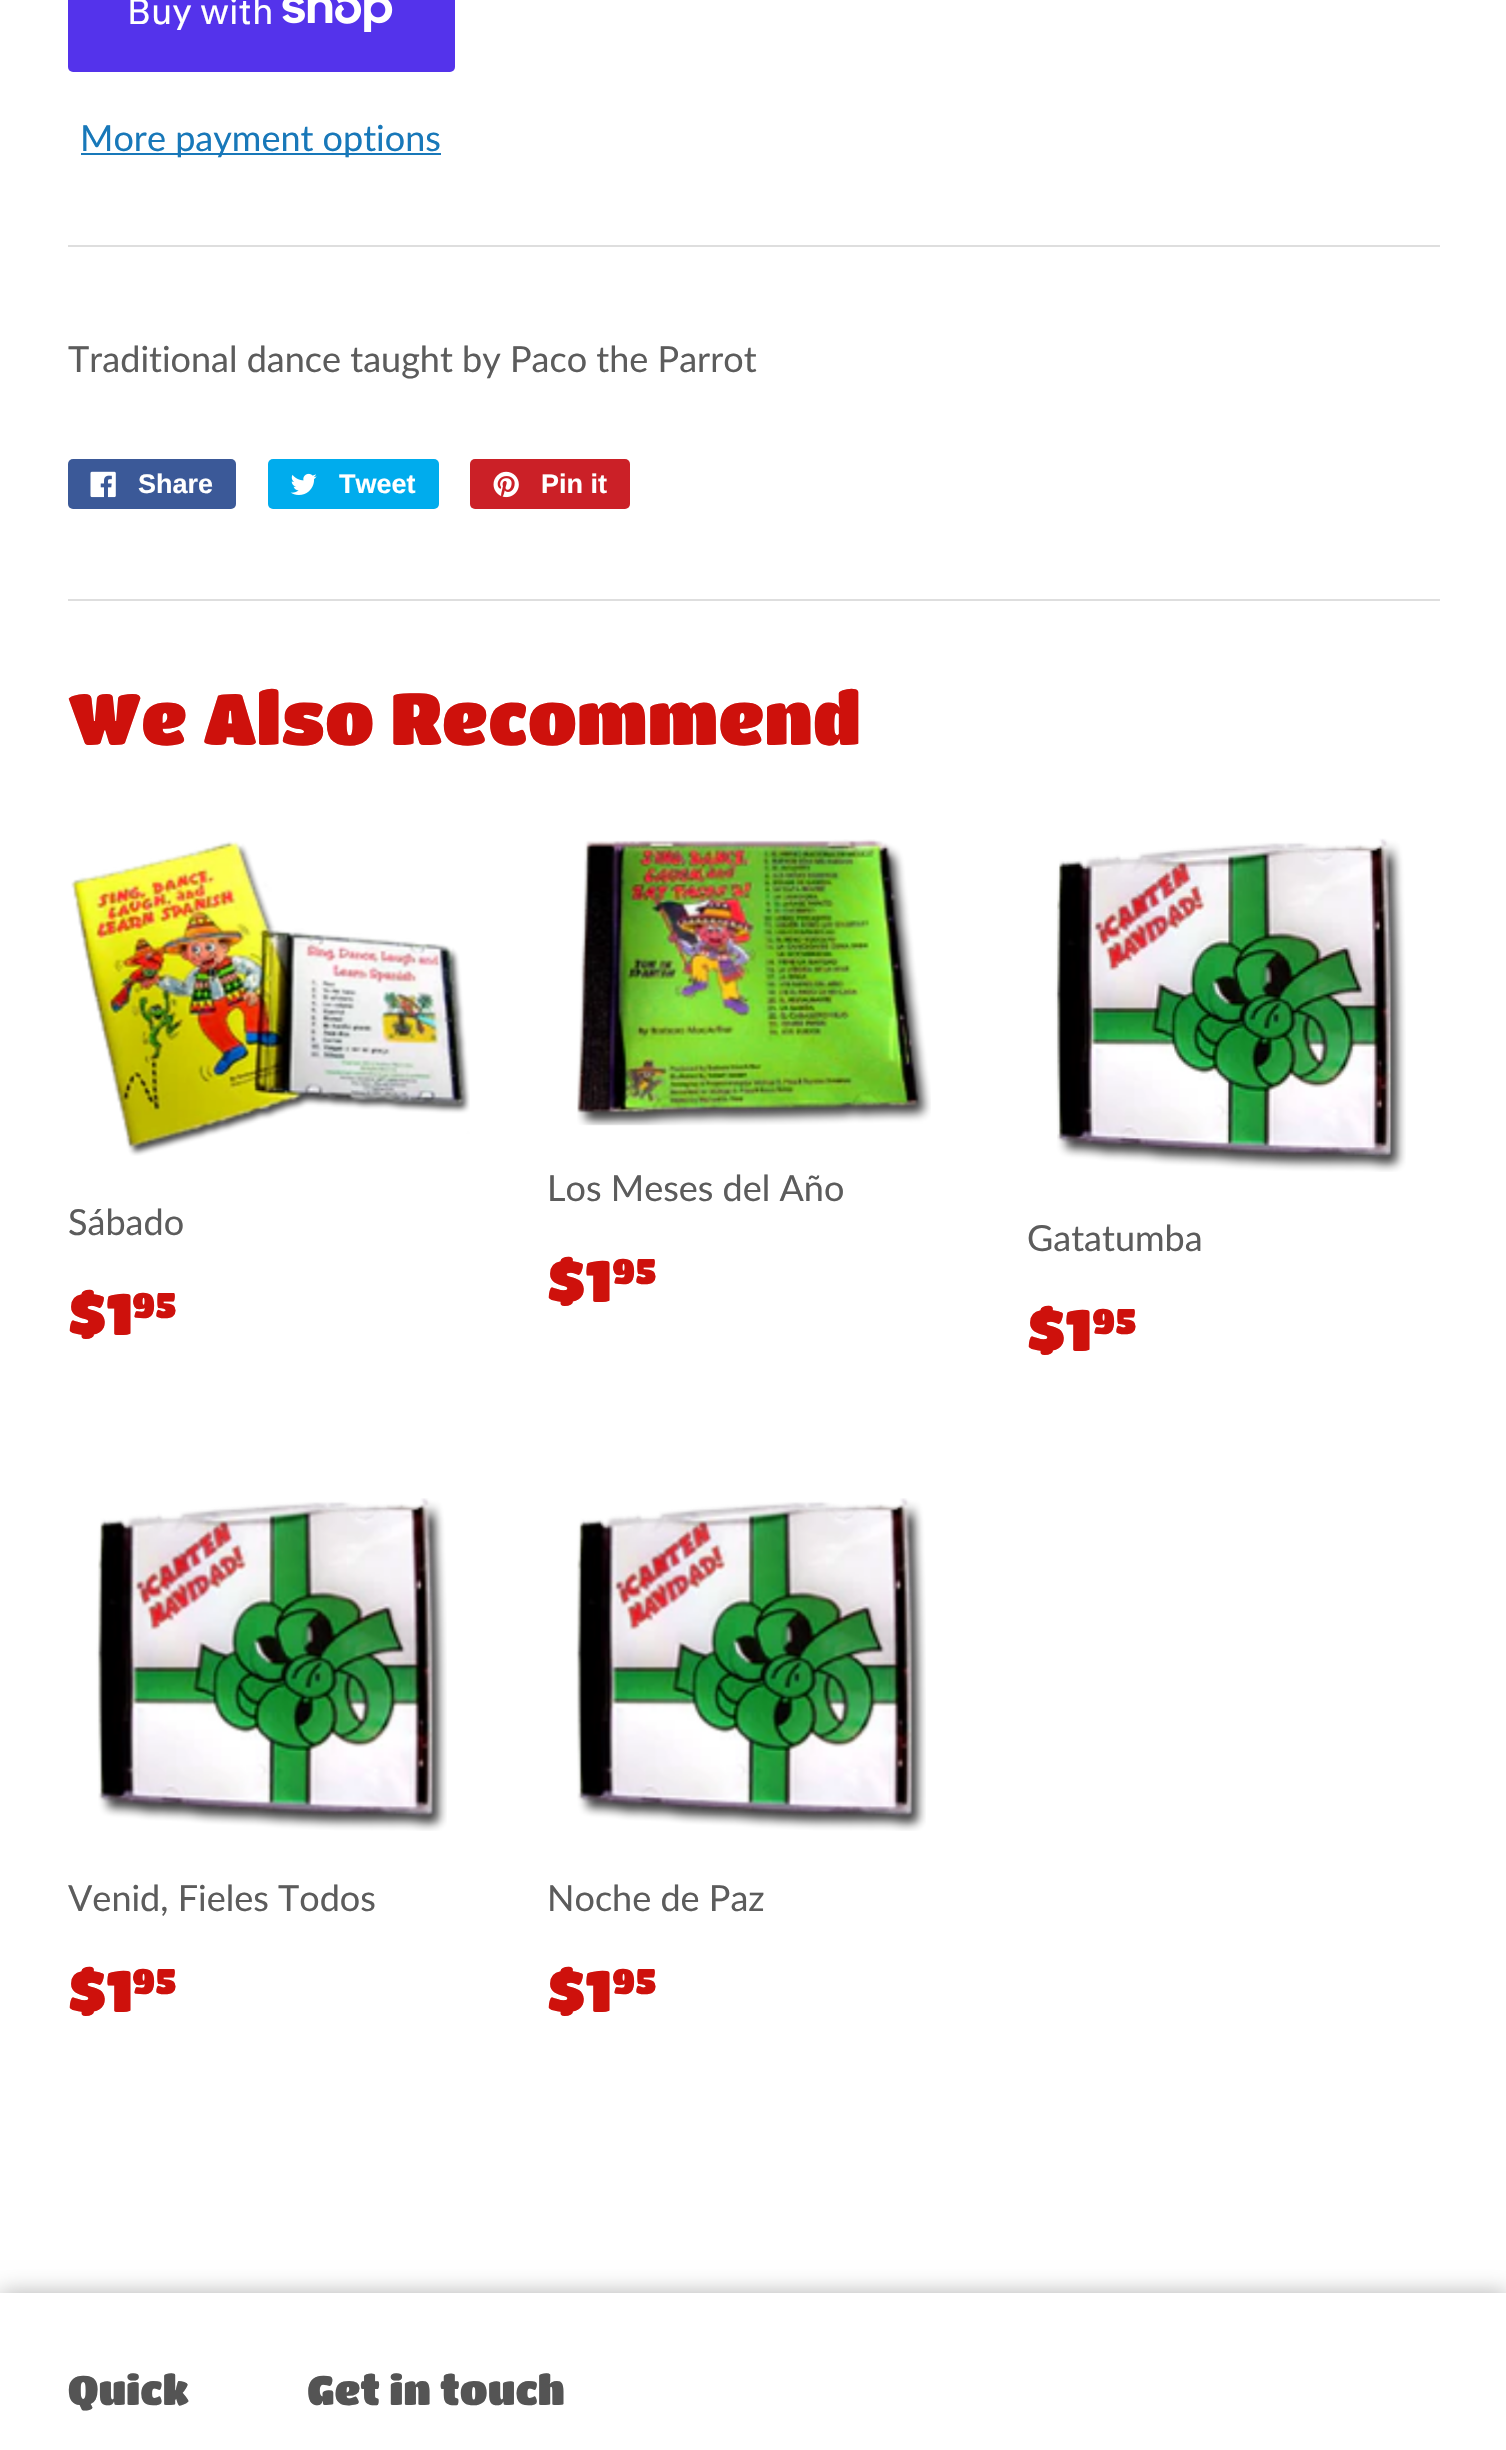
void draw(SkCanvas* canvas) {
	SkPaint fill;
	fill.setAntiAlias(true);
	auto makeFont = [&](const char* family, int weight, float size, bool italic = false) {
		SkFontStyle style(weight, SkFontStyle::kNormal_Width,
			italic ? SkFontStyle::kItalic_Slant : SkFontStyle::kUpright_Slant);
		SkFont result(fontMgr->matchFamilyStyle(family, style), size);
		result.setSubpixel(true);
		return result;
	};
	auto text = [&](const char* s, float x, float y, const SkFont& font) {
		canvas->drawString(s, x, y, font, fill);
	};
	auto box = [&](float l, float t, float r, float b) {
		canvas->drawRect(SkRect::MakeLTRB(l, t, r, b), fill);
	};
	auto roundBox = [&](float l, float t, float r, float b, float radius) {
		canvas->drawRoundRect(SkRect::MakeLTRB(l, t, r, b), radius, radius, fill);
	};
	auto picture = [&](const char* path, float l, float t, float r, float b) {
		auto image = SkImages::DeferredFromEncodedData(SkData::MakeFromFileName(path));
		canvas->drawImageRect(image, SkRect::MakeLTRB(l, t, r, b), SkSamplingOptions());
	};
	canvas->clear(0xFFFFFFFF);
	fill.setColor(0xFF5433EB);
	roundBox(68, -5, 455, 72, 5);
	picture("image0.png", 282, 0, 393, 32);
	fill.setColor(0xFF1878B9);
	box(81, 153, 441, 155);
	fill.setColor(0xFFDEDEDE);
	box(68, 245, 1440, 247);
	fill.setColor(0xFF3B5998);
	roundBox(68, 459, 236, 509, 5);
	picture("image1.png", 90, 471, 116, 498);
	fill.setColor(0xFF00ACED);
	roundBox(268, 459, 439, 509, 5);
	picture("image2.png", 290, 473, 317, 495);
	fill.setColor(0xFFCB2027);
	roundBox(470, 459, 630, 509, 5);
	picture("image3.png", 493, 471, 519, 498);
	fill.setColor(0xFFDEDEDE);
	box(68, 599, 1440, 601);
	picture("image4.png", 71, 841, 470, 1156);
	picture("image5.png", 577, 839, 931, 1126);
	picture("image6.png", 1055, 838, 1406, 1172);
	picture("image7.png", 96, 1498, 447, 1831);
	picture("image8.png", 576, 1498, 926, 1831);
	fill.setColor(0x4D000000);
	fill.setMaskFilter(SkMaskFilter::MakeBlur(kNormal_SkBlurStyle, 11));
	canvas->drawRect(SkRect::MakeLTRB(0, 2293, 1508, 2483), fill);
	fill.setMaskFilter(nullptr);
	fill.setColor(0xFFFFFFFF);
	box(0, 2293, 1506, 2450);
	auto font1 = makeFont("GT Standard", 400, 36);
	text("Buy with", 127, 24, font1);
	auto font2 = makeFont("Lato", 400, 36);
	fill.setColor(0xFF1878B9);
	text("More payment options", 80, 151, font2);
	fill.setColor(0xFF5C5C5C);
	text("Traditional dance taught by Paco the Parrot", 68, 372, font2);
	auto font3 = makeFont("Liberation Sans", 700, 27);
	fill.setColor(0xFFFFFFFF);
	text("Share", 138, 493, font3);
	text("Tweet", 339, 493, font3);
	text("Pin it", 541, 493, font3);
	auto font4 = makeFont("Titan One", 400, 72);
	fill.setColor(0xFFCE110C);
	text("We Also Recommend", 68, 745, font4);
	fill.setColor(0xFF5C5C5C);
	text("Sábado", 68, 1235, font2);
	auto font5 = makeFont("Titan One", 400, 58);
	fill.setColor(0xFFCE110C);
	text("$1", 68, 1335, font5);
	auto font6 = makeFont("Titan One", 400, 35);
	text("95", 132, 1318, font6);
	fill.setColor(0xFF5C5C5C);
	text("Los Meses del Año", 547, 1201, font2);
	fill.setColor(0xFFCE110C);
	text("$1", 547, 1302, font5);
	text("95", 612, 1284, font6);
	fill.setColor(0xFF5C5C5C);
	text("Gatatumba", 1027, 1251, font2);
	fill.setColor(0xFFCE110C);
	text("$1", 1027, 1351, font5);
	text("95", 1092, 1334, font6);
	fill.setColor(0xFF5C5C5C);
	text("Venid, Fieles Todos", 68, 1911, font2);
	fill.setColor(0xFFCE110C);
	text("$1", 68, 2012, font5);
	text("95", 132, 1994, font6);
	fill.setColor(0xFF5C5C5C);
	text("Noche de Paz", 547, 1911, font2);
	fill.setColor(0xFFCE110C);
	text("$1", 547, 2012, font5);
	text("95", 612, 1994, font6);
	auto font7 = makeFont("Titan One", 400, 40.75f);
	fill.setColor(0xFF545454);
	text("Quick", 68, 2405, font7);
	text("Get in touch", 307, 2405, font7);
}
